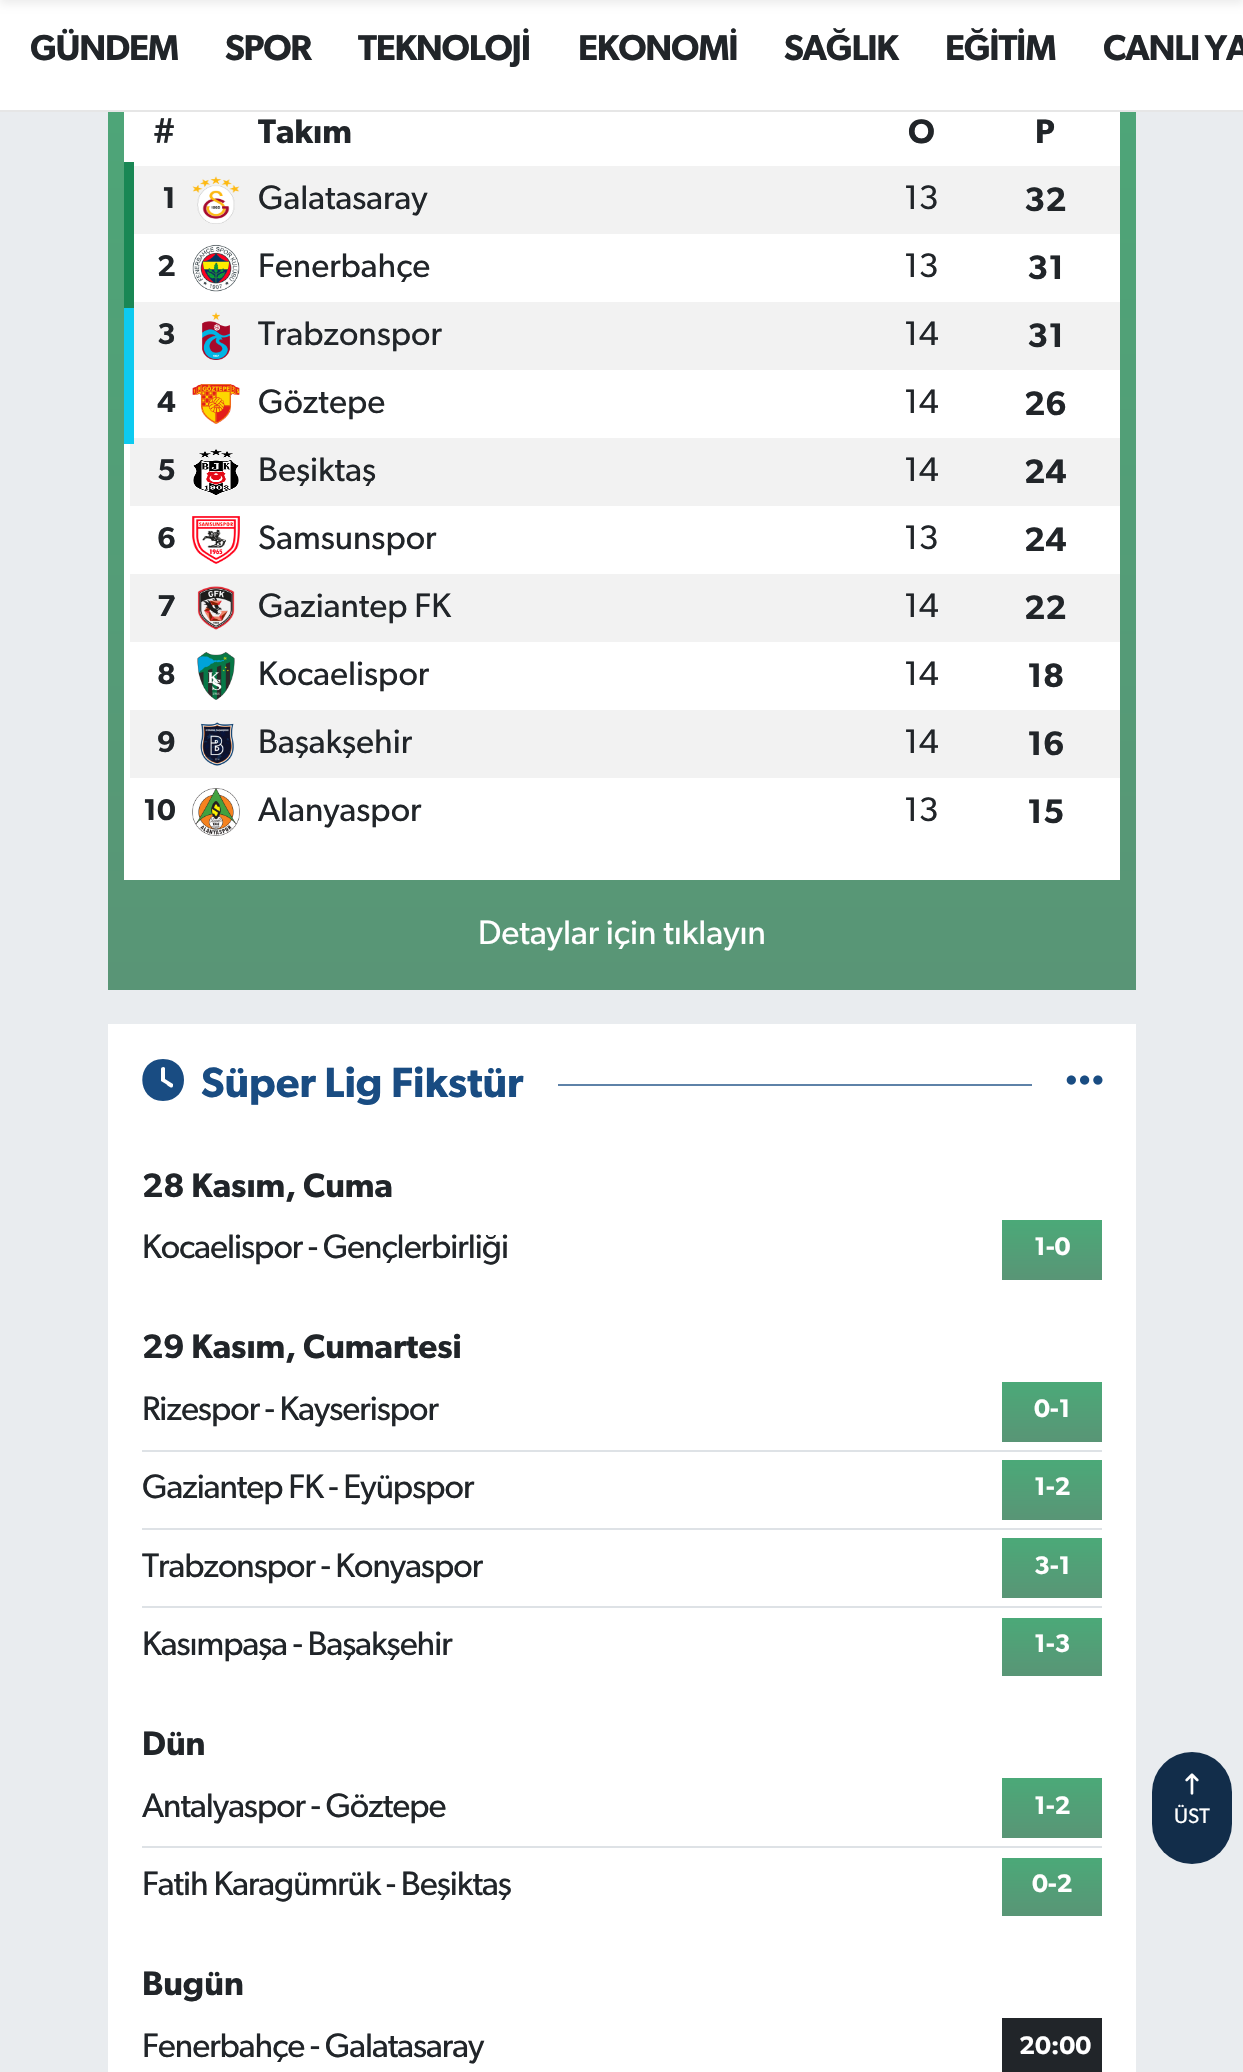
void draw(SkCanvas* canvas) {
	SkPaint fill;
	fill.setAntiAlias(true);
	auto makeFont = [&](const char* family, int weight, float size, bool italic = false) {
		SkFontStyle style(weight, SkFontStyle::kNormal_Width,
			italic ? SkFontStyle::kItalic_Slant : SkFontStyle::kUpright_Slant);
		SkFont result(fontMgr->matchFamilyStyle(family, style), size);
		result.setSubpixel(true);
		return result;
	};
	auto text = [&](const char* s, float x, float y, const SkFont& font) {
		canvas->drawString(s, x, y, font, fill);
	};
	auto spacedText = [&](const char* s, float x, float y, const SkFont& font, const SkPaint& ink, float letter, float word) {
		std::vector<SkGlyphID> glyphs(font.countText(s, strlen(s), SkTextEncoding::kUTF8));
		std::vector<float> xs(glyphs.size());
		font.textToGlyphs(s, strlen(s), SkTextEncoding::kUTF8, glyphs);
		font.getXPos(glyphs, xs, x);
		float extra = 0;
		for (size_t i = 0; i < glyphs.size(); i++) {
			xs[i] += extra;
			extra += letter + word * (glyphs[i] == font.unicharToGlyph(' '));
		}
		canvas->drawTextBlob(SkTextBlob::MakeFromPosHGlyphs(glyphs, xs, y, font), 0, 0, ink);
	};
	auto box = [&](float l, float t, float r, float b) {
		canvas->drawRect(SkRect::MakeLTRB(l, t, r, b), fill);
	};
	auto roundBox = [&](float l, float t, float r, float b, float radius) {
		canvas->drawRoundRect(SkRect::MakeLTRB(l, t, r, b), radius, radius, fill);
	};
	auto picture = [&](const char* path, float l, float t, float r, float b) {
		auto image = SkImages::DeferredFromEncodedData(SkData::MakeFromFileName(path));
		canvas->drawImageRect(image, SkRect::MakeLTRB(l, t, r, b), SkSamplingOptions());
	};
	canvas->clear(0xFFE9ECEF);
	fill.setColor(0xFFFFFFFF);
	box(0, 0, 1243, 110);
	fill.setColor(0x12000000);
	fill.setMaskFilter(SkMaskFilter::MakeBlur(kNormal_SkBlurStyle, 4));
	canvas->drawRect(SkRect::MakeLTRB(0, -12, 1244, 4), fill);
	fill.setMaskFilter(nullptr);
	fill.setColor(0xFFE6E6E6);
	box(0, 110, 1243, 112);
	{
		const SkColor colors[] = {0xFF4BA978, 0xFF599576};
		const float stops[] = {0, 1};
		const SkPoint ends[] = {{622, -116}, {622, 990}};
		fill.setShader(SkGradientShader::MakeLinear(ends, colors, stops, 2, SkTileMode::kClamp));
		fill.setAlpha(255);
	}
	box(108, 112, 1136, 990);
	fill.setShader(nullptr);
	fill.setColor(0xFFFFFFFF);
	box(124, 112, 1120, 880);
	fill.setColor(0xFFF2F2F2);
	box(134, 166, 1120, 234);
	picture("image0.png", 192, 176, 240, 224);
	fill.setColor(0xFF198754);
	box(124, 162, 134, 308);
	picture("image1.png", 192, 244, 240, 292);
	fill.setColor(0xFFF2F2F2);
	box(134, 302, 1120, 370);
	picture("image2.png", 202, 312, 230, 360);
	box(130, 438, 1120, 506);
	fill.setColor(0xFF0DCAF0);
	box(124, 308, 134, 444);
	picture("image3.png", 192, 384, 240, 424);
	picture("image4.png", 192, 449, 240, 496);
	picture("image5.png", 192, 516, 240, 564);
	fill.setColor(0xFFF2F2F2);
	box(130, 574, 1120, 642);
	picture("image6.png", 197, 586, 235, 630);
	picture("image7.png", 197, 652, 235, 700);
	box(130, 710, 1120, 778);
	picture("image8.png", 200, 722, 234, 766);
	picture("image9.png", 192, 788, 240, 836);
	fill.setColor(0xFFFFFFFF);
	box(108, 1024, 1136, 2072);
	fill.setColor(0xFF194C82);
	canvas->drawPath(SkPathBuilder().moveTo(163, 1059).cubicTo(191, 1059, 191, 1101, 163, 1101).cubicTo(136, 1101, 135, 1059, 163, 1059).close().moveTo(161, 1069).lineTo(161, 1081).lineTo(166, 1084).cubicTo(167, 1085, 172, 1090, 173, 1086).lineTo(173, 1084).lineTo(165, 1079).lineTo(165, 1068).cubicTo(164, 1066, 161, 1067, 161, 1069).close().detach(), fill);
	fill.setColor(0xFF5E82A8);
	box(558, 1084, 1032, 1086);
	picture("image10.png", 1066, 1075, 1103, 1085);
	{
		const SkColor colors[] = {0xFF4BA978, 0xFF599576};
		const float stops[] = {0, 1};
		const SkPoint ends[] = {{1052, 1220}, {1052, 1280}};
		fill.setShader(SkGradientShader::MakeLinear(ends, colors, stops, 2, SkTileMode::kClamp));
		fill.setAlpha(255);
	}
	box(1002, 1220, 1102, 1280);
	fill.setShader(nullptr);
	fill.setColor(0xFFDEE2E6);
	box(142, 1450, 1102, 1452);
	{
		const SkColor colors[] = {0xFF4BA978, 0xFF599576};
		const float stops[] = {0, 1};
		const SkPoint ends[] = {{1052, 1382}, {1052, 1442}};
		fill.setShader(SkGradientShader::MakeLinear(ends, colors, stops, 2, SkTileMode::kClamp));
		fill.setAlpha(255);
	}
	box(1002, 1382, 1102, 1442);
	fill.setShader(nullptr);
	fill.setColor(0xFFDEE2E6);
	box(142, 1528, 1102, 1530);
	{
		const SkColor colors[] = {0xFF4BA978, 0xFF599576};
		const float stops[] = {0, 1};
		const SkPoint ends[] = {{1052, 1460}, {1052, 1520}};
		fill.setShader(SkGradientShader::MakeLinear(ends, colors, stops, 2, SkTileMode::kClamp));
		fill.setAlpha(255);
	}
	box(1002, 1460, 1102, 1520);
	fill.setShader(nullptr);
	fill.setColor(0xFFDEE2E6);
	box(142, 1606, 1102, 1608);
	{
		const SkColor colors[] = {0xFF4BA978, 0xFF599576};
		const float stops[] = {0, 1};
		const SkPoint ends[] = {{1052, 1538}, {1052, 1598}};
		fill.setShader(SkGradientShader::MakeLinear(ends, colors, stops, 2, SkTileMode::kClamp));
		fill.setAlpha(255);
	}
	box(1002, 1538, 1102, 1598);
	{
		const SkColor colors[] = {0xFF4BA978, 0xFF599576};
		const float stops[] = {0, 1};
		const SkPoint ends[] = {{1052, 1618}, {1052, 1676}};
		fill.setShader(SkGradientShader::MakeLinear(ends, colors, stops, 2, SkTileMode::kClamp));
		fill.setAlpha(255);
	}
	box(1002, 1618, 1102, 1676);
	fill.setShader(nullptr);
	fill.setColor(0xFFDEE2E6);
	box(142, 1846, 1102, 1848);
	{
		const SkColor colors[] = {0xFF4BA978, 0xFF599576};
		const float stops[] = {0, 1};
		const SkPoint ends[] = {{1052, 1778}, {1052, 1838}};
		fill.setShader(SkGradientShader::MakeLinear(ends, colors, stops, 2, SkTileMode::kClamp));
		fill.setAlpha(255);
	}
	box(1002, 1778, 1102, 1838);
	{
		const SkColor colors[] = {0xFF4BA978, 0xFF599576};
		const float stops[] = {0, 1};
		const SkPoint ends[] = {{1052, 1858}, {1052, 1916}};
		fill.setShader(SkGradientShader::MakeLinear(ends, colors, stops, 2, SkTileMode::kClamp));
		fill.setAlpha(255);
	}
	box(1002, 1858, 1102, 1916);
	fill.setShader(nullptr);
	fill.setColor(0xFF212529);
	box(1002, 2018, 1102, 2072);
	fill.setColor(0xFF122D4A);
	roundBox(1152, 1752, 1232, 1864, 40);
	picture("image11.png", 1185, 1773, 1199, 1795);
	auto font1 = makeFont("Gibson", 600, 36);
	fill.setColor(0xFF212529);
	spacedText("GÜNDEM", 30, 60, font1, fill, -1.25f, 0);
	spacedText("SPOR", 225, 60, font1, fill, -1.25f, 0);
	spacedText("TEKNOLOJİ", 358, 60, font1, fill, -1.25f, 0);
	spacedText("EKONOMİ", 578, 60, font1, fill, -1.25f, 0);
	spacedText("SAĞLIK", 784, 60, font1, fill, -1.25f, 0);
	spacedText("EĞİTİM", 945, 60, font1, fill, -1.25f, 0);
	spacedText("CANLI YA", 1103, 60, font1, fill, -1.25f, 0);
	auto font2 = makeFont("Gibson", 600, 34);
	text("#", 153, 143, font2);
	text("Takım", 258, 143, font2);
	text("O", 908, 143, font2);
	text("P", 1035, 143, font2);
	auto font3 = makeFont("Gibson", 600, 30);
	text("1", 162, 208, font3);
	auto font4 = makeFont("Gibson", 400, 34);
	text("Galatasaray", 258, 209, font4);
	text("13", 904, 209, font4);
	text("32", 1024, 211, font2);
	text("2", 157, 276, font3);
	text("Fenerbahçe", 258, 277, font4);
	text("13", 904, 277, font4);
	text("31", 1027, 279, font2);
	text("3", 157, 344, font3);
	text("Trabzonspor", 258, 345, font4);
	text("14", 904, 345, font4);
	text("31", 1027, 347, font2);
	text("4", 157, 412, font3);
	text("Göztepe", 258, 413, font4);
	text("14", 904, 413, font4);
	text("26", 1024, 415, font2);
	text("5", 157, 480, font3);
	text("Beşiktaş", 258, 481, font4);
	text("14", 904, 481, font4);
	text("24", 1024, 483, font2);
	text("6", 157, 548, font3);
	text("Samsunspor", 258, 549, font4);
	text("13", 904, 549, font4);
	text("24", 1024, 551, font2);
	text("7", 157, 616, font3);
	text("Gaziantep FK", 258, 617, font4);
	text("14", 904, 617, font4);
	text("22", 1024, 619, font2);
	text("8", 157, 684, font3);
	text("Kocaelispor", 258, 685, font4);
	text("14", 904, 685, font4);
	text("18", 1027, 687, font2);
	text("9", 157, 752, font3);
	text("Başakşehir", 258, 753, font4);
	text("14", 904, 753, font4);
	text("16", 1027, 755, font2);
	text("10", 143, 820, font3);
	text("Alanyaspor", 258, 821, font4);
	text("13", 904, 821, font4);
	text("15", 1027, 823, font2);
	fill.setColor(0xFFFFFFFF);
	text("Detaylar için tıklayın", 478, 944, font4);
	auto font5 = makeFont("Gibson", 600, 42.5f);
	fill.setColor(0xFF194C82);
	text("Süper Lig Fikstür", 201, 1097, font5);
	fill.setColor(0xFF212529);
	text("28 Kasım, Cuma", 142, 1197, font2);
	spacedText("Kocaelispor - Gençlerbirliği", 142, 1258, font4, fill, -1, 0);
	auto font6 = makeFont("Gibson", 600, 25.5f);
	fill.setColor(0xFFFFFFFF);
	text("1-0", 1034, 1255, font6);
	fill.setColor(0xFF212529);
	text("29 Kasım, Cumartesi", 142, 1358, font2);
	spacedText("Rizespor - Kayserispor", 142, 1420, font4, fill, -1, 0);
	fill.setColor(0xFFFFFFFF);
	text("0-1", 1034, 1417, font6);
	fill.setColor(0xFF212529);
	spacedText("Gaziantep FK - Eyüpspor", 142, 1498, font4, fill, -1, 0);
	fill.setColor(0xFFFFFFFF);
	text("1-2", 1034, 1495, font6);
	fill.setColor(0xFF212529);
	spacedText("Trabzonspor - Konyaspor", 142, 1577, font4, fill, -1, 0);
	fill.setColor(0xFFFFFFFF);
	text("3-1", 1034, 1574, font6);
	fill.setColor(0xFF212529);
	spacedText("Kasımpaşa - Başakşehir", 142, 1655, font4, fill, -1, 0);
	fill.setColor(0xFFFFFFFF);
	text("1-3", 1034, 1652, font6);
	fill.setColor(0xFF212529);
	text("Dün", 142, 1755, font2);
	spacedText("Antalyaspor - Göztepe", 142, 1817, font4, fill, -1, 0);
	fill.setColor(0xFFFFFFFF);
	text("1-2", 1034, 1814, font6);
	fill.setColor(0xFF212529);
	spacedText("Fatih Karagümrük - Beşiktaş", 142, 1895, font4, fill, -1, 0);
	fill.setColor(0xFFFFFFFF);
	text("0-2", 1032, 1892, font6);
	fill.setColor(0xFF212529);
	text("Bugün", 142, 1995, font2);
	spacedText("Fenerbahçe - Galatasaray", 142, 2057, font4, fill, -1, 0);
	fill.setColor(0xFFFFFFFF);
	text("20:00", 1019, 2054, font6);
	auto font7 = makeFont("Gibson", 400, 21);
	text("ÜST", 1174, 1823, font7);
}
